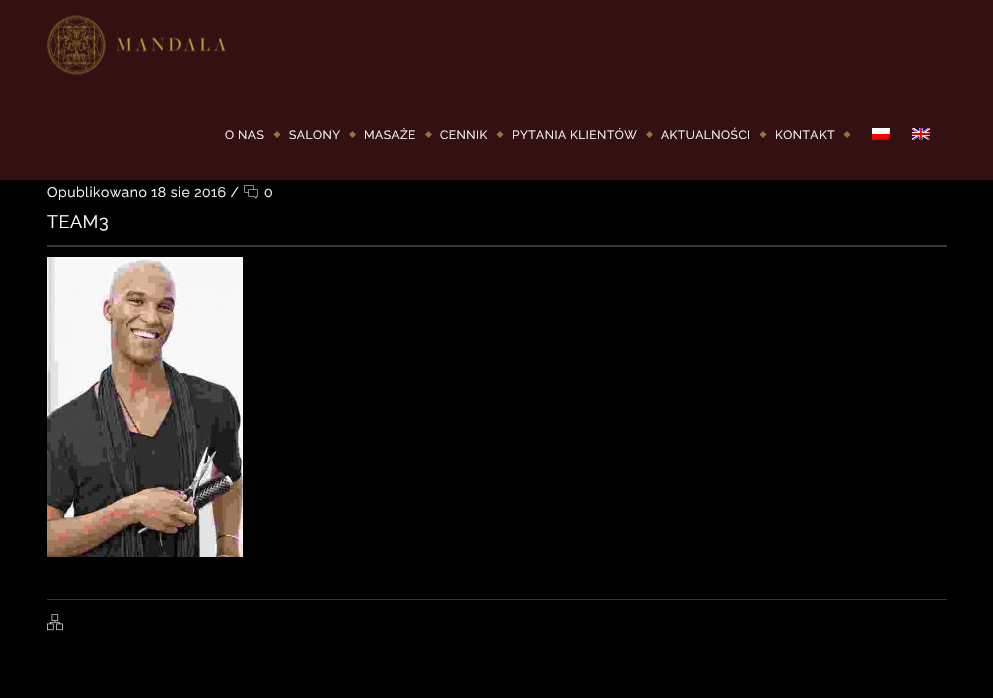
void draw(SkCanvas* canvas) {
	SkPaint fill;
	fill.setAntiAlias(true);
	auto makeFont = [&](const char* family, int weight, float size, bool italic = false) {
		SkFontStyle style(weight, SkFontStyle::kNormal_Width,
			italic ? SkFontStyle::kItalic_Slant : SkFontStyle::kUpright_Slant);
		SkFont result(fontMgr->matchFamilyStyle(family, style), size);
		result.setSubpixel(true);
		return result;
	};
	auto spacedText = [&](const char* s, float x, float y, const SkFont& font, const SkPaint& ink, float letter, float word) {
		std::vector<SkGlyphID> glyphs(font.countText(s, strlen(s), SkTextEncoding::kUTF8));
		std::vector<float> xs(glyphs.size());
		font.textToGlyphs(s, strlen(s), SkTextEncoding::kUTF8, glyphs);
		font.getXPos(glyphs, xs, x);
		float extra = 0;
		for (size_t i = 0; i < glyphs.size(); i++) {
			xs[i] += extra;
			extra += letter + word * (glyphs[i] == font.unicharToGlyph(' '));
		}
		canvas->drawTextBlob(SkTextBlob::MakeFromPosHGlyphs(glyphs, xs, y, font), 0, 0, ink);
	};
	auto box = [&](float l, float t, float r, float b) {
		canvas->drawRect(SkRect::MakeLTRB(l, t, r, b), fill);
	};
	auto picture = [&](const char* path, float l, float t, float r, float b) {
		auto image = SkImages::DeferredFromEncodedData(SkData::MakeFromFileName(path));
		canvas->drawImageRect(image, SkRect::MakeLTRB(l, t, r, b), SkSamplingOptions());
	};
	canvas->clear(0xFF000000);
	fill.setColor(0xFF331011);
	box(0, 0, 993, 180);
	picture("image0.png", 47, 15, 226, 75);
	fill.setColor(0xFF91753B);
	canvas->drawPath(SkPathBuilder().moveTo(277, 131).lineTo(280.5f, 134.5f).lineTo(277, 138).lineTo(273.5f, 134.5f).close().detach(), fill);
	canvas->drawPath(SkPathBuilder().moveTo(352.5f, 131).lineTo(356, 134.5f).lineTo(352.5f, 138).lineTo(349, 134.5f).close().detach(), fill);
	canvas->drawPath(SkPathBuilder().moveTo(428.5f, 131).lineTo(432, 134.5f).lineTo(428.5f, 138).lineTo(425, 134.5f).close().detach(), fill);
	canvas->drawPath(SkPathBuilder().moveTo(500, 131).lineTo(503.5f, 134.5f).lineTo(500, 138).lineTo(496.5f, 134.5f).close().detach(), fill);
	canvas->drawPath(SkPathBuilder().moveTo(649.5f, 131).lineTo(653, 134.5f).lineTo(649.5f, 138).lineTo(646, 134.5f).close().detach(), fill);
	canvas->drawPath(SkPathBuilder().moveTo(763, 131).lineTo(766.5f, 134.5f).lineTo(763, 138).lineTo(759.5f, 134.5f).close().detach(), fill);
	canvas->drawPath(SkPathBuilder().moveTo(847, 131).lineTo(850.5f, 134.5f).lineTo(847, 138).lineTo(843.5f, 134.5f).close().detach(), fill);
	picture("image1.png", 872, 128, 890, 140);
	picture("image2.png", 912, 128, 930, 140);
	picture("image3.png", 244, 185, 258, 199);
	fill.setColor(0xFF353737);
	box(47, 245, 947, 247);
	picture("image4.png", 47, 257, 243, 557);
	box(47, 599, 947, 600);
	picture("image5.png", 47, 614, 63, 631);
	auto font1 = makeFont("Raleway", 400, 12);
	fill.setColor(0xFFFFFFFF);
	spacedText("O NAS", 225, 139, font1, fill, 0.5f, 0);
	spacedText("SALONY", 289, 139, font1, fill, 0.5f, 0);
	spacedText("MASAŻE", 364, 139, font1, fill, 0.5f, 0);
	spacedText("CENNIK", 440, 139, font1, fill, 0.5f, 0);
	spacedText("PYTANIA KLIENTÓW", 512, 139, font1, fill, 0.5f, 0);
	spacedText("AKTUALNOŚCI", 661, 139, font1, fill, 0.5f, 0);
	spacedText("KONTAKT", 775, 139, font1, fill, 0.5f, 0);
	auto font2 = makeFont("Raleway", 400, 14);
	spacedText("Opublikowano 18 sie 2016 /", 47, 197, font2, fill, 0.5f, 0);
	spacedText("0", 264, 197, font2, fill, 0.5f, 0);
	auto font3 = makeFont("Raleway", 400, 18);
	spacedText("TEAM3", 47, 228, font3, fill, 0.5f, 0);
}
